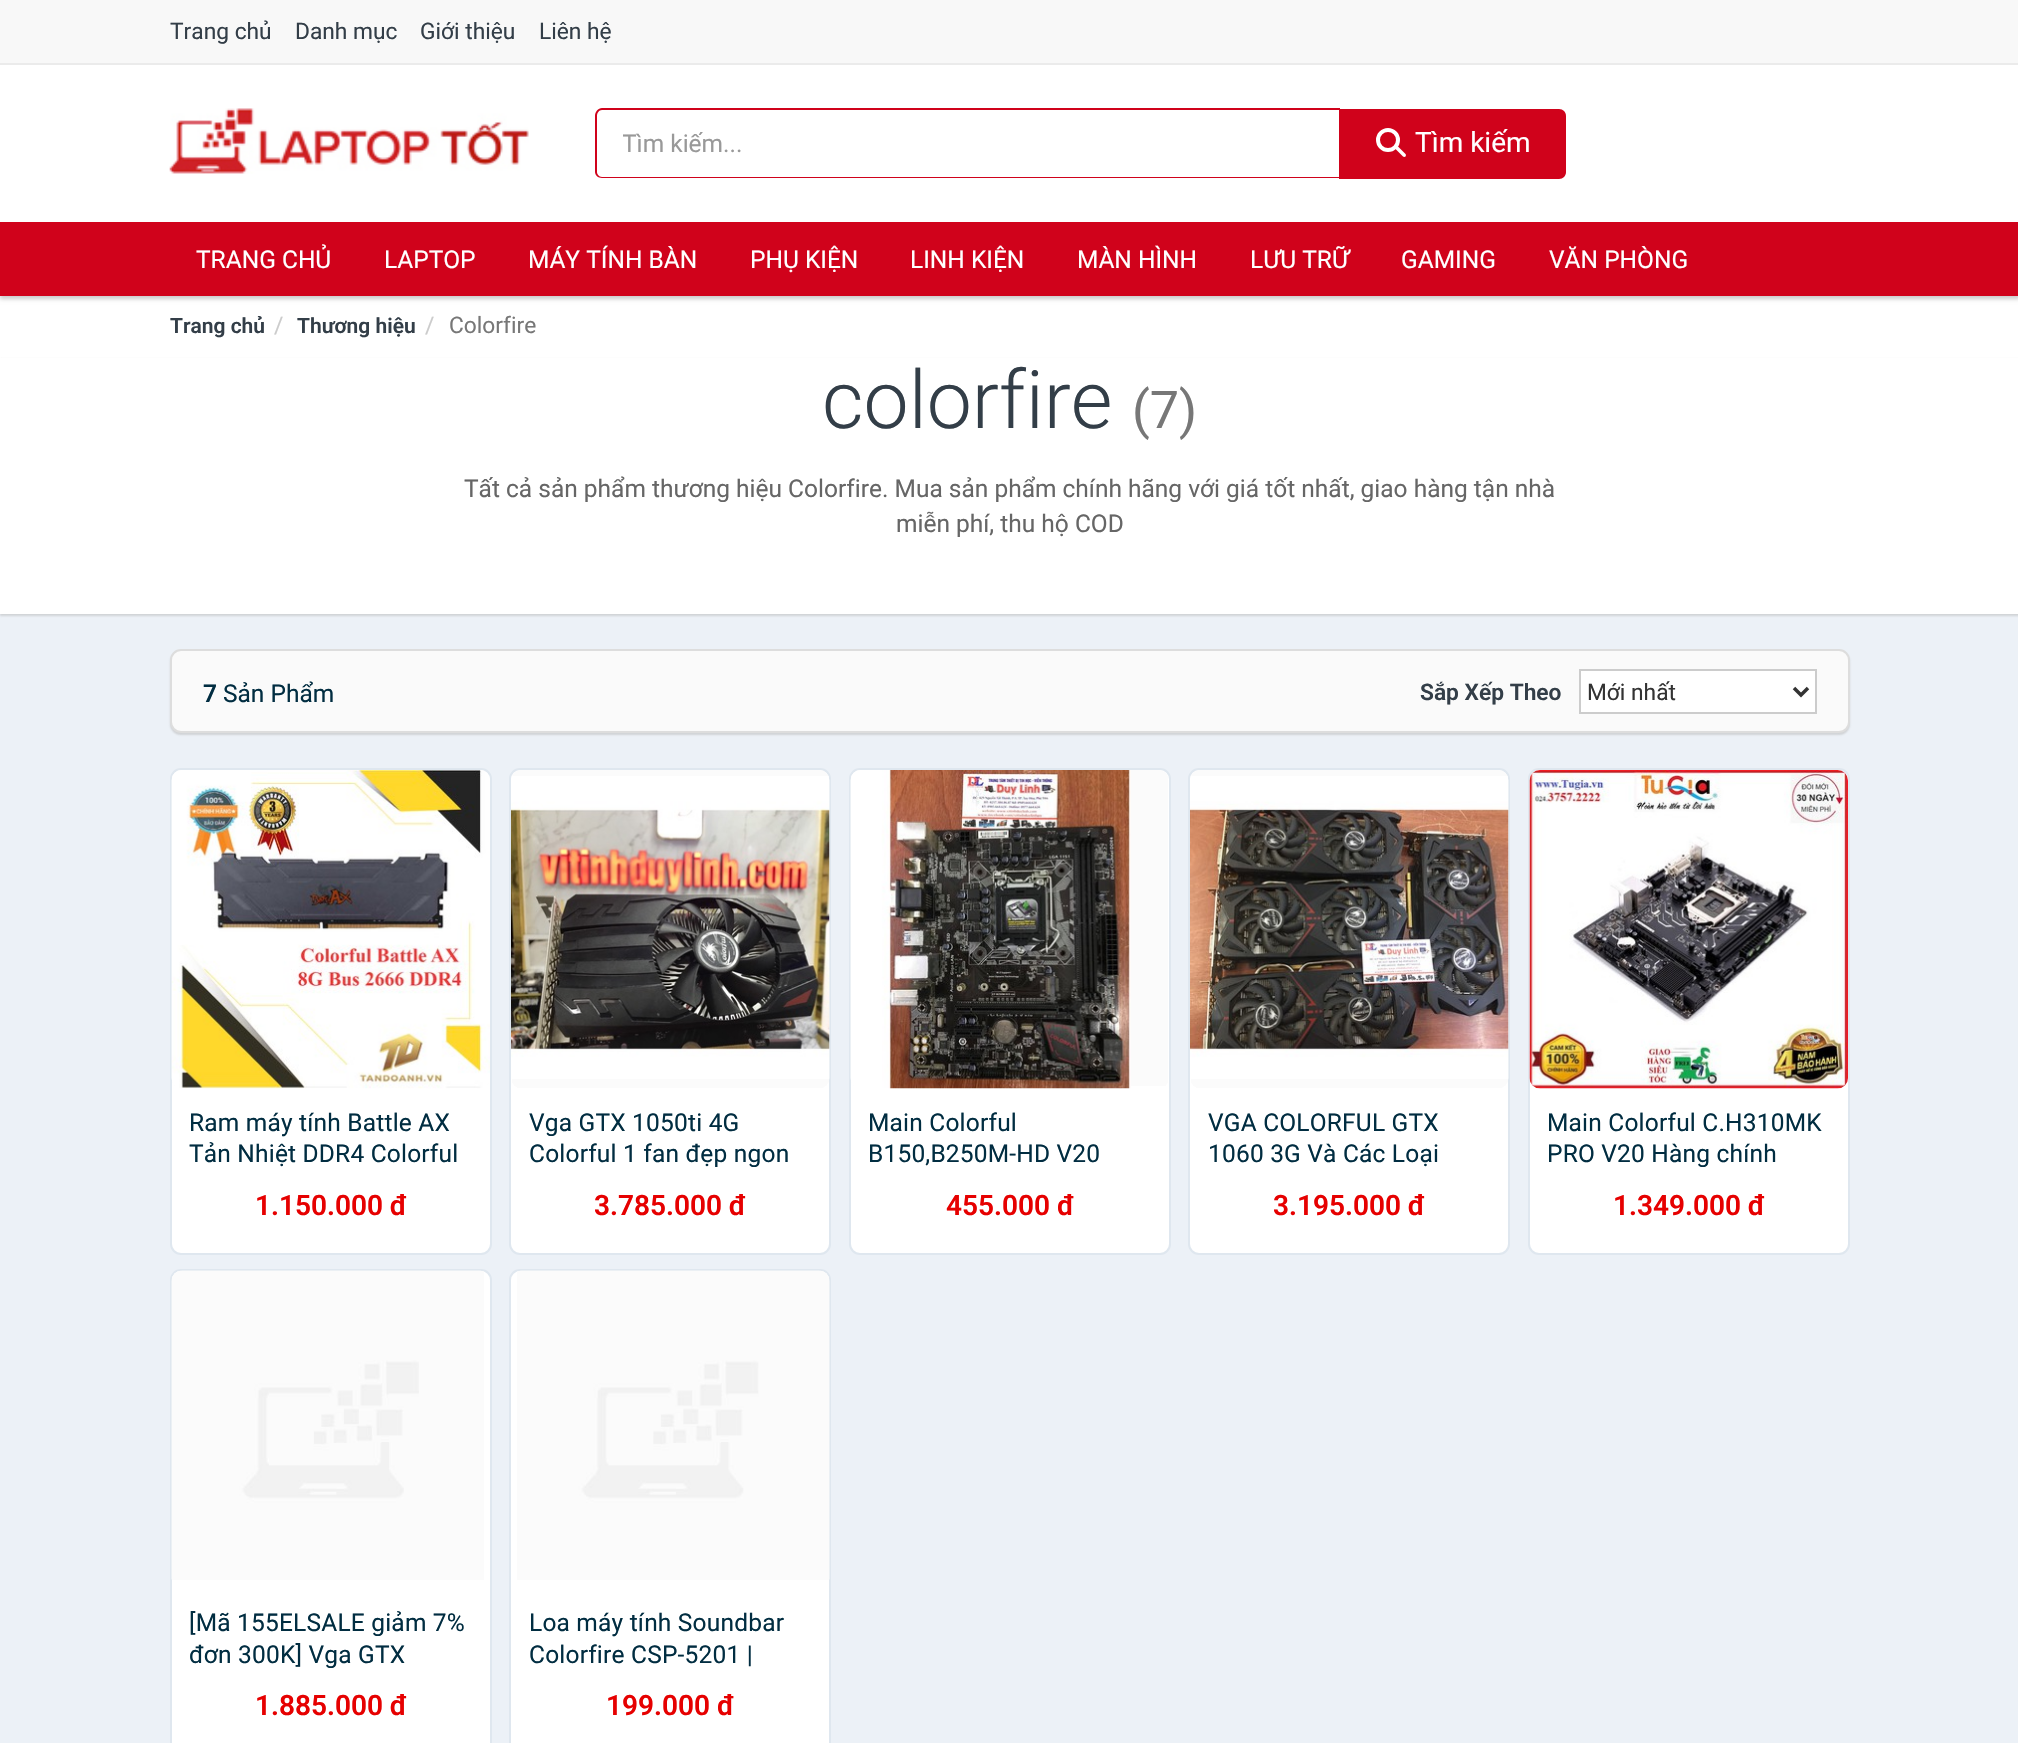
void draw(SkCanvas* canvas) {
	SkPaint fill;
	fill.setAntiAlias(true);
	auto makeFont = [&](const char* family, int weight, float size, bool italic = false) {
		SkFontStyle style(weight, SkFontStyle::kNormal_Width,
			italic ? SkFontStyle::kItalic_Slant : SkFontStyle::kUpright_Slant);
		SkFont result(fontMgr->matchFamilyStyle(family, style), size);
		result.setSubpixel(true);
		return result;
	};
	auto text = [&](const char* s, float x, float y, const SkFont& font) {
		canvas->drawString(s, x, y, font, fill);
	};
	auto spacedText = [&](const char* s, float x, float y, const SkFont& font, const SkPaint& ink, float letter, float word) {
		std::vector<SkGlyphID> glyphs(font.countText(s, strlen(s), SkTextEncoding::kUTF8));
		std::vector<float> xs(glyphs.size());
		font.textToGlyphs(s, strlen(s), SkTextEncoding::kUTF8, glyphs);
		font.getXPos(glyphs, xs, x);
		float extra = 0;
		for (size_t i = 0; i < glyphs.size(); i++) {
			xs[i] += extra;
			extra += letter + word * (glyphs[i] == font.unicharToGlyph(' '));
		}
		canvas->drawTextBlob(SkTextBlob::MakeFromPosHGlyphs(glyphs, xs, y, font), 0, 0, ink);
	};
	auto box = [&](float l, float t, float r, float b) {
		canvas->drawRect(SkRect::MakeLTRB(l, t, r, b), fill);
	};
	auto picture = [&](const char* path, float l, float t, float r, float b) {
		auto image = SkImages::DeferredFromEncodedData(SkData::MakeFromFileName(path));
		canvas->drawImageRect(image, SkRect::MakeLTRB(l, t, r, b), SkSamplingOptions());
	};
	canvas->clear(0xFFFFFFFF);
	fill.setColor(0xFFF8F8F8);
	box(0, 0, 2018, 63);
	fill.setColor(0xFFEBEBEB);
	box(0, 63, 2018, 65);
	picture("image0.png", 169, 108, 529, 174);
	fill.setColor(0xFFD0021B);
	canvas->drawPath(SkPathBuilder(SkPathFillType::kEvenOdd).moveTo(602, 108).lineTo(1340, 108).lineTo(1340, 178).lineTo(602, 178).cubicTo(598, 178, 595, 175, 595, 172).lineTo(595, 116).cubicTo(595, 112, 598, 108, 602, 108).close().moveTo(602, 110).lineTo(1340, 110).lineTo(1340, 177).lineTo(602, 177).cubicTo(599, 177, 597, 174, 597, 172).lineTo(597, 116).cubicTo(597, 113, 599, 110, 602, 110).close().detach(), fill);
	canvas->drawPath(SkPathBuilder().moveTo(1339, 109).lineTo(1559, 109).cubicTo(1563, 109, 1566, 112, 1566, 116).lineTo(1566, 172).cubicTo(1566, 176, 1563, 179, 1559, 179).lineTo(1339, 179).close().detach(), fill);
	fill.setStyle(SkPaint::kStroke_Style);
	fill.setStrokeWidth(4);
	fill.setColor(0xFFFFFFFF);
	canvas->drawCircle(1388, 140, 10, fill);
	fill.setStyle(SkPaint::kFill_Style);
	canvas->drawPath(SkPathBuilder().moveTo(1397, 145.5f).lineTo(1405.5f, 154).cubicTo(1406, 154.5f, 1406, 156, 1405.5f, 156.5f).cubicTo(1405, 157, 1403.5f, 157, 1403, 156.5f).lineTo(1394.5f, 148).close().detach(), fill);
	fill.setColor(0x33000000);
	fill.setMaskFilter(SkMaskFilter::MakeBlur(kNormal_SkBlurStyle, 2));
	canvas->drawRect(SkRect::MakeLTRB(0, 226, 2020, 299), fill);
	fill.setMaskFilter(nullptr);
	fill.setColor(0xFFD0021B);
	box(0, 222, 2018, 296);
	fill.setColor(0xFFECF1F7);
	box(0, 614, 2018, 1743);
	fill.setColor(0x80B4B4B4);
	fill.setMaskFilter(SkMaskFilter::MakeBlur(kNormal_SkBlurStyle, 1));
	canvas->drawRect(SkRect::MakeLTRB(0, 359, 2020, 616), fill);
	fill.setMaskFilter(nullptr);
	fill.setColor(0xFFFFFFFF);
	box(0, 358, 2018, 614);
	fill.setColor(0x80B4B4B4);
	fill.setMaskFilter(SkMaskFilter::MakeBlur(kNormal_SkBlurStyle, 1));
	canvas->drawRoundRect(SkRect::MakeLTRB(170, 651, 1850, 735), 11, 11, fill);
	fill.setMaskFilter(nullptr);
	fill.setColor(0xFFFAFAFA);
	canvas->drawRoundRect(SkRect::MakeLTRB(171, 650, 1849, 732), 10, 10, fill);
	fill.setStyle(SkPaint::kStroke_Style);
	fill.setStrokeWidth(2);
	fill.setColor(0xFFDDDDDD);
	canvas->drawRoundRect(SkRect::MakeLTRB(171, 650, 1849, 732), 10, 10, fill);
	fill.setStyle(SkPaint::kFill_Style);
	fill.setColor(0xFFFFFFFF);
	canvas->drawRect(SkRect::MakeLTRB(1580, 670, 1816, 713), fill);
	fill.setStyle(SkPaint::kStroke_Style);
	fill.setColor(0xFFCCCCCC);
	canvas->drawRect(SkRect::MakeLTRB(1580, 670, 1816, 713), fill);
	fill.setStrokeWidth(3.5f);
	fill.setColor(0xFF333333);
	canvas->drawPath(SkPathBuilder().moveTo(1794, 688).lineTo(1801, 695).lineTo(1808, 688).detach(), fill);
	fill.setStyle(SkPaint::kFill_Style);
	fill.setColor(0xFFFFFFFF);
	canvas->drawRoundRect(SkRect::MakeLTRB(171, 769, 491, 1254), 10, 10, fill);
	fill.setStyle(SkPaint::kStroke_Style);
	fill.setStrokeWidth(2);
	fill.setColor(0xFFDFE7EF);
	canvas->drawRoundRect(SkRect::MakeLTRB(171, 769, 491, 1254), 10, 10, fill);
	picture("image1.png", 171, 770, 489, 1086);
	picture("image2.png", 171, 770, 490, 1089);
	fill.setStyle(SkPaint::kFill_Style);
	fill.setColor(0xFFFFFFFF);
	canvas->drawRoundRect(SkRect::MakeLTRB(510, 769, 830, 1254), 10, 10, fill);
	fill.setStyle(SkPaint::kStroke_Style);
	fill.setColor(0xFFDFE7EF);
	canvas->drawRoundRect(SkRect::MakeLTRB(510, 769, 830, 1254), 10, 10, fill);
	picture("image3.png", 512, 770, 830, 1088);
	picture("image4.png", 511, 776, 830, 1079);
	fill.setStyle(SkPaint::kFill_Style);
	fill.setColor(0xFFFFFFFF);
	canvas->drawRoundRect(SkRect::MakeLTRB(850, 769, 1170, 1254), 10, 10, fill);
	fill.setStyle(SkPaint::kStroke_Style);
	fill.setColor(0xFFDFE7EF);
	canvas->drawRoundRect(SkRect::MakeLTRB(850, 769, 1170, 1254), 10, 10, fill);
	picture("image1.png", 850, 770, 1168, 1086);
	picture("image5.png", 850, 770, 1131, 1089);
	fill.setStyle(SkPaint::kFill_Style);
	fill.setColor(0xFFFFFFFF);
	canvas->drawRoundRect(SkRect::MakeLTRB(1189, 769, 1509, 1254), 10, 10, fill);
	fill.setStyle(SkPaint::kStroke_Style);
	fill.setColor(0xFFDFE7EF);
	canvas->drawRoundRect(SkRect::MakeLTRB(1189, 769, 1509, 1254), 10, 10, fill);
	picture("image3.png", 1191, 770, 1509, 1088);
	picture("image6.png", 1190, 776, 1509, 1079);
	fill.setStyle(SkPaint::kFill_Style);
	fill.setColor(0xFFFFFFFF);
	canvas->drawRoundRect(SkRect::MakeLTRB(1529, 769, 1849, 1254), 10, 10, fill);
	fill.setStyle(SkPaint::kStroke_Style);
	fill.setColor(0xFFDFE7EF);
	canvas->drawRoundRect(SkRect::MakeLTRB(1529, 769, 1849, 1254), 10, 10, fill);
	picture("image1.png", 1529, 770, 1847, 1086);
	picture("image7.png", 1529, 770, 1848, 1089);
	fill.setStyle(SkPaint::kFill_Style);
	fill.setColor(0xFFFFFFFF);
	canvas->drawRoundRect(SkRect::MakeLTRB(171, 1270, 491, 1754), 10, 10, fill);
	fill.setStyle(SkPaint::kStroke_Style);
	fill.setColor(0xFFDFE7EF);
	canvas->drawRoundRect(SkRect::MakeLTRB(171, 1270, 491, 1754), 10, 10, fill);
	picture("image8.png", 171, 1270, 484, 1580);
	picture("image9.png", 171, 1270, 481, 1579);
	fill.setStyle(SkPaint::kFill_Style);
	fill.setColor(0xFFFFFFFF);
	canvas->drawRoundRect(SkRect::MakeLTRB(510, 1270, 830, 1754), 10, 10, fill);
	fill.setStyle(SkPaint::kStroke_Style);
	fill.setColor(0xFFDFE7EF);
	canvas->drawRoundRect(SkRect::MakeLTRB(510, 1270, 830, 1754), 10, 10, fill);
	picture("image10.png", 517, 1270, 830, 1580);
	picture("image11.png", 520, 1270, 830, 1579);
	auto font1 = makeFont("Roboto", 400, 22.75f);
	fill.setStyle(SkPaint::kFill_Style);
	fill.setColor(0xFF333E48);
	text("Trang chủ", 170, 39, font1);
	text("Danh mục", 295, 39, font1);
	text("Giới thiệu", 420, 39, font1);
	text("Liên hệ", 539, 39, font1);
	canvas->save();
	canvas->clipRect(SkRect::MakeLTRB(623, 130, 1314, 158));
	auto font2 = makeFont("Roboto", 400, 24.5f);
	fill.setColor(0xFF999999);
	text("Tìm kiếm...", 622, 152, font2);
	canvas->restore();
	auto font3 = makeFont("Roboto", 400, 28);
	fill.setColor(0xFFFFFFFF);
	text("Tìm kiếm", 1415, 152, font3);
	text("TRANG CHỦ", 196, 268, font2);
	text("LAPTOP", 384, 268, font2);
	text("MÁY TÍNH BÀN", 528, 268, font2);
	text("PHỤ KIỆN", 750, 268, font2);
	text("LINH KIỆN", 910, 268, font2);
	text("MÀN HÌNH", 1077, 268, font2);
	text("LƯU TRỮ", 1250, 268, font2);
	text("GAMING", 1401, 268, font2);
	text("VĂN PHÒNG", 1549, 268, font2);
	auto font4 = makeFont("Roboto", 600, 21);
	fill.setColor(0xFF333E48);
	text("Trang chủ", 170, 333, font4);
	fill.setColor(0xFFCCCCCC);
	text("/", 274, 333, font1);
	fill.setColor(0xFF333E48);
	text("Thương hiệu", 297, 333, font4);
	fill.setColor(0xFFCCCCCC);
	text("/", 425, 333, font1);
	fill.setColor(0xFF777777);
	text("Colorfire", 449, 333, font1);
	auto font5 = makeFont("Roboto", 300, 80.5f);
	fill.setColor(0xFF333E48);
	text("colorfire", 822, 428, font5);
	auto font6 = makeFont("Roboto", 400, 52);
	fill.setColor(0xFF777777);
	text("(7)", 1132, 428, font6);
	fill.setColor(0xFF666666);
	text("Tất cả sản phẩm thương hiệu Colorfire. Mua sản phẩm chính hãng với giá tốt nhất, giao hàng tận nhà", 464, 497, font2);
	text("miễn phí, thu hộ COD", 896, 532, font2);
	auto font7 = makeFont("Roboto", 600, 24.5f);
	fill.setColor(0xFF012D41);
	text("7", 203, 702, font7);
	text("Sản Phẩm", 223, 702, font2);
	auto font8 = makeFont("Roboto", 600, 22.75f);
	fill.setColor(0xFF333E48);
	text("Sắp Xếp Theo", 1420, 700, font8);
	fill.setColor(0xFF333333);
	text("Mới nhất", 1587, 700, font1);
	fill.setColor(0xFF012D41);
	spacedText("Ram máy tính Battle AX", 189, 1131, font2, fill, 0.2f, 0);
	spacedText("Tản Nhiệt DDR4 Colorful", 189, 1162, font2, fill, 0.2f, 0);
	auto font9 = makeFont("Roboto", 600, 28);
	fill.setColor(0xFFE60000);
	text("1.150.000 đ", 255, 1215, font9);
	fill.setColor(0xFF012D41);
	spacedText("Vga GTX 1050ti 4G", 529, 1131, font2, fill, 0.2f, 0);
	spacedText("Colorful 1 fan đẹp ngon", 529, 1162, font2, fill, 0.2f, 0);
	fill.setColor(0xFFE60000);
	text("3.785.000 đ", 594, 1215, font9);
	fill.setColor(0xFF012D41);
	spacedText("Main Colorful", 868, 1131, font2, fill, 0.2f, 0);
	spacedText("B150,B250M-HD V20", 868, 1162, font2, fill, 0.2f, 0);
	fill.setColor(0xFFE60000);
	text("455.000 đ", 946, 1215, font9);
	fill.setColor(0xFF012D41);
	spacedText("VGA COLORFUL GTX", 1208, 1131, font2, fill, 0.2f, 0);
	spacedText("1060 3G Và Các Loại", 1208, 1162, font2, fill, 0.2f, 0);
	fill.setColor(0xFFE60000);
	text("3.195.000 đ", 1273, 1215, font9);
	fill.setColor(0xFF012D41);
	spacedText("Main Colorful C.H310MK", 1547, 1131, font2, fill, 0.2f, 0);
	spacedText("PRO V20 Hàng chính", 1547, 1162, font2, fill, 0.2f, 0);
	fill.setColor(0xFFE60000);
	text("1.349.000 đ", 1613, 1215, font9);
	fill.setColor(0xFF012D41);
	spacedText("[Mã 155ELSALE giảm 7%", 189, 1631, font2, fill, 0.2f, 0);
	spacedText("đơn 300K] Vga GTX", 189, 1663, font2, fill, 0.2f, 0);
	fill.setColor(0xFFE60000);
	text("1.885.000 đ", 255, 1715, font9);
	fill.setColor(0xFF012D41);
	spacedText("Loa máy tính Soundbar", 529, 1631, font2, fill, 0.2f, 0);
	spacedText("Colorfire CSP-5201 |", 529, 1663, font2, fill, 0.2f, 0);
	fill.setColor(0xFFE60000);
	text("199.000 đ", 606, 1715, font9);
}
